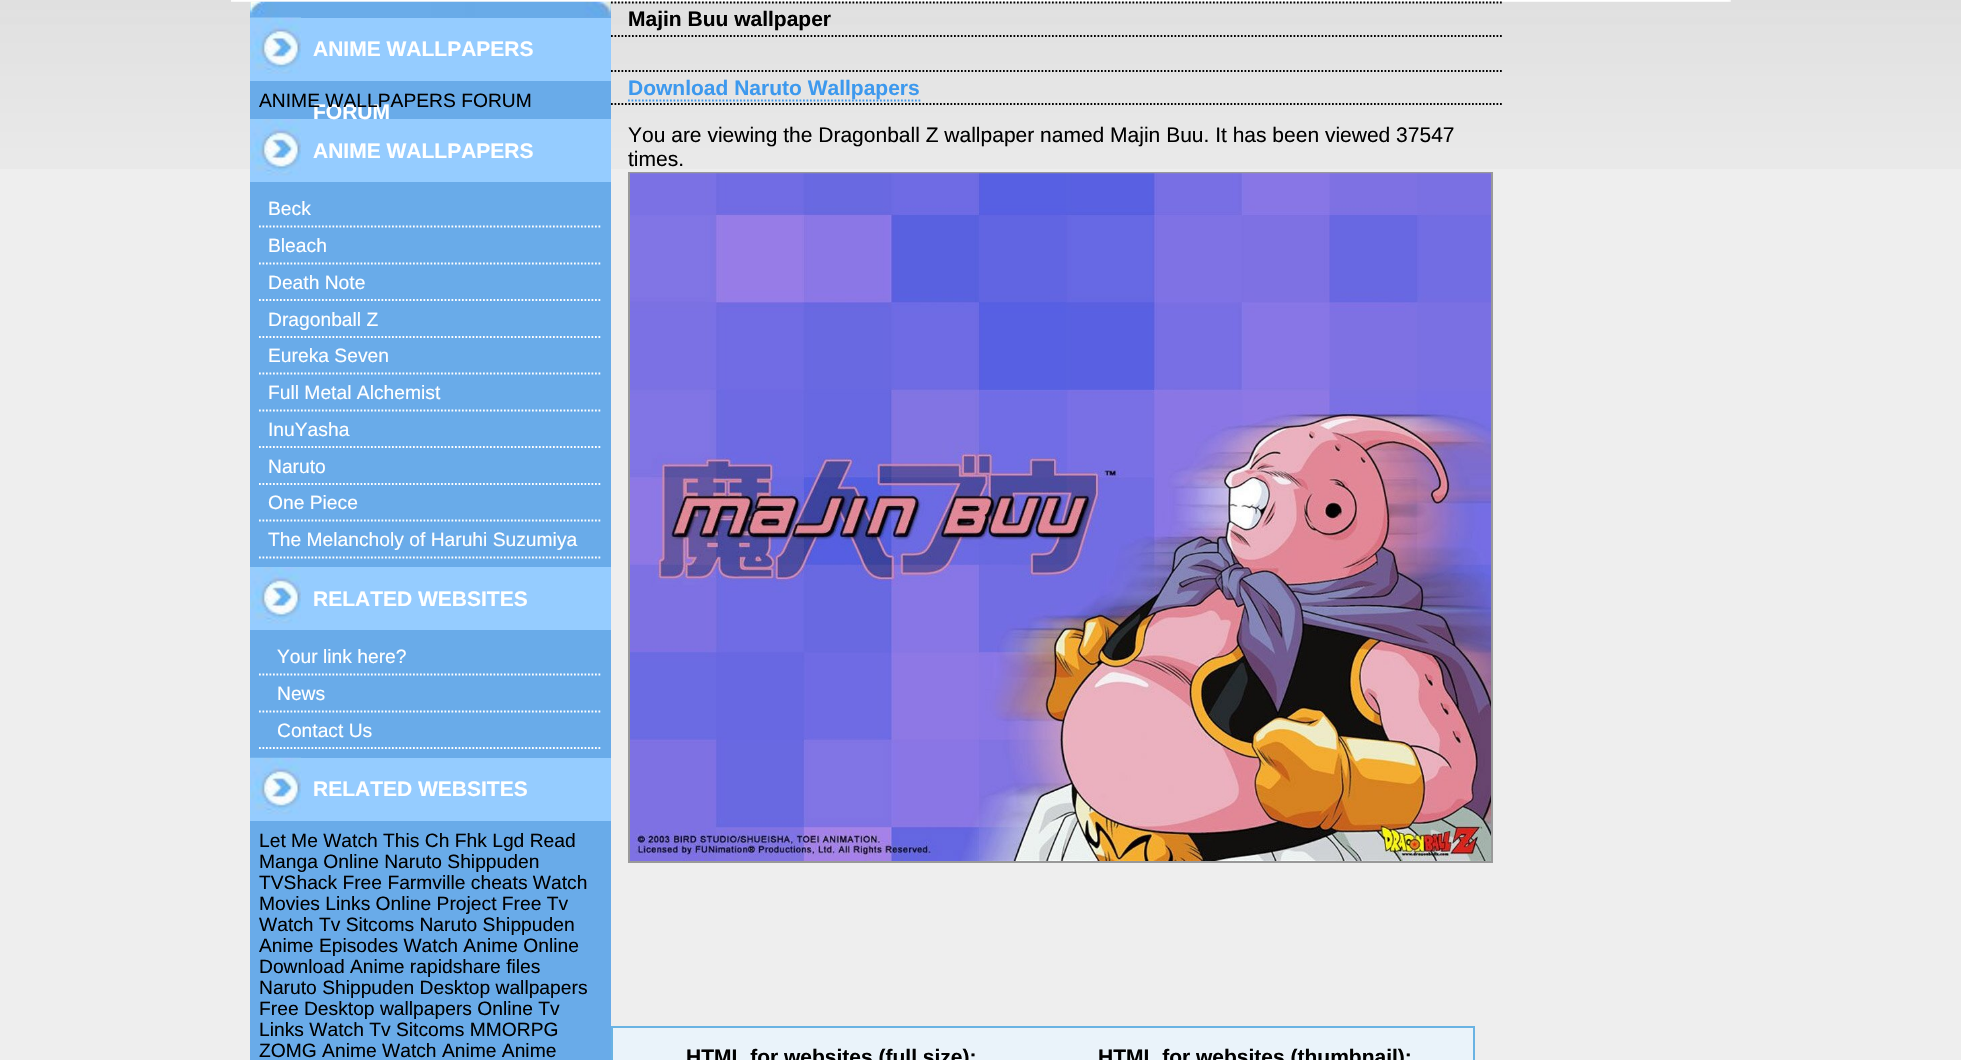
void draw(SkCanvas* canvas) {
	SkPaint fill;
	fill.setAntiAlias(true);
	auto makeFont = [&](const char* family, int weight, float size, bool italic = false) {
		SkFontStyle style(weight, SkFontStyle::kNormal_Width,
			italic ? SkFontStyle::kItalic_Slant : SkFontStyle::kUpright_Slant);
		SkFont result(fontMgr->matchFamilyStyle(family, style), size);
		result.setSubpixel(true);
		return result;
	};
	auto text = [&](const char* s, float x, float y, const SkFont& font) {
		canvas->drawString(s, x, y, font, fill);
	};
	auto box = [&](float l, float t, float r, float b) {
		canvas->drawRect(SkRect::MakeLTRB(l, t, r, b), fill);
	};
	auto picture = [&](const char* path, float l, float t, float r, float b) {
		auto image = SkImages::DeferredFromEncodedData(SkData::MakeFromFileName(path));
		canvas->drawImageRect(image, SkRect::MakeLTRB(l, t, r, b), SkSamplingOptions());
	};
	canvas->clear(0xFFEEEEEE);
	picture("image0.png", 0, 0, 1961, 169);
	picture("image1.png", 231, 0, 1731, 2);
	fill.setColor(0xFF69ABE9);
	box(250, 2, 611, 1060);
	picture("image2.png", 250, 1, 611, 17);
	fill.setColor(0xFF95CCFF);
	box(250, 18, 611, 81);
	picture("image3.png", 250, 17, 301, 74);
	box(250, 119, 611, 182);
	picture("image4.png", 250, 119, 301, 176);
	fill.setStyle(SkPaint::kStroke_Style);
	fill.setStrokeWidth(1.8f);
	fill.setColor(0xFFFFFFFF);
	fill.setPathEffect(SkDashPathEffect::Make({{1.75f, 1.75f}}, 0));
	canvas->drawPath(SkPathBuilder().moveTo(259, 226.5f).lineTo(602, 226.5f).detach(), fill);
	fill.setPathEffect(nullptr);
	fill.setPathEffect(SkDashPathEffect::Make({{1.75f, 1.75f}}, 0));
	canvas->drawPath(SkPathBuilder().moveTo(259, 263.5f).lineTo(602, 263.5f).detach(), fill);
	fill.setPathEffect(nullptr);
	fill.setPathEffect(SkDashPathEffect::Make({{1.75f, 1.75f}}, 0));
	canvas->drawPath(SkPathBuilder().moveTo(259, 300).lineTo(602, 300).detach(), fill);
	fill.setPathEffect(nullptr);
	fill.setPathEffect(SkDashPathEffect::Make({{1.75f, 1.75f}}, 0));
	canvas->drawPath(SkPathBuilder().moveTo(259, 337).lineTo(602, 337).detach(), fill);
	fill.setPathEffect(nullptr);
	fill.setPathEffect(SkDashPathEffect::Make({{1.75f, 1.75f}}, 0));
	canvas->drawPath(SkPathBuilder().moveTo(259, 373.5f).lineTo(602, 373.5f).detach(), fill);
	fill.setPathEffect(nullptr);
	fill.setPathEffect(SkDashPathEffect::Make({{1.75f, 1.75f}}, 0));
	canvas->drawPath(SkPathBuilder().moveTo(259, 410.5f).lineTo(602, 410.5f).detach(), fill);
	fill.setPathEffect(nullptr);
	fill.setPathEffect(SkDashPathEffect::Make({{1.75f, 1.75f}}, 0));
	canvas->drawPath(SkPathBuilder().moveTo(259, 447).lineTo(602, 447).detach(), fill);
	fill.setPathEffect(nullptr);
	fill.setPathEffect(SkDashPathEffect::Make({{1.75f, 1.75f}}, 0));
	canvas->drawPath(SkPathBuilder().moveTo(259, 484).lineTo(602, 484).detach(), fill);
	fill.setPathEffect(nullptr);
	fill.setPathEffect(SkDashPathEffect::Make({{1.75f, 1.75f}}, 0));
	canvas->drawPath(SkPathBuilder().moveTo(259, 520.5f).lineTo(602, 520.5f).detach(), fill);
	fill.setPathEffect(nullptr);
	fill.setPathEffect(SkDashPathEffect::Make({{1.75f, 1.75f}}, 0));
	canvas->drawPath(SkPathBuilder().moveTo(259, 557.5f).lineTo(602, 557.5f).detach(), fill);
	fill.setPathEffect(nullptr);
	fill.setStyle(SkPaint::kFill_Style);
	fill.setColor(0xFF95CCFF);
	box(250, 567, 611, 630);
	picture("image4.png", 250, 567, 301, 624);
	fill.setStyle(SkPaint::kStroke_Style);
	fill.setColor(0xFFFFFFFF);
	fill.setPathEffect(SkDashPathEffect::Make({{1.75f, 1.75f}}, 0));
	canvas->drawPath(SkPathBuilder().moveTo(259, 674.5f).lineTo(602, 674.5f).detach(), fill);
	fill.setPathEffect(nullptr);
	fill.setPathEffect(SkDashPathEffect::Make({{1.75f, 1.75f}}, 0));
	canvas->drawPath(SkPathBuilder().moveTo(259, 711.5f).lineTo(602, 711.5f).detach(), fill);
	fill.setPathEffect(nullptr);
	fill.setPathEffect(SkDashPathEffect::Make({{1.75f, 1.75f}}, 0));
	canvas->drawPath(SkPathBuilder().moveTo(259, 748).lineTo(602, 748).detach(), fill);
	fill.setPathEffect(nullptr);
	fill.setStyle(SkPaint::kFill_Style);
	fill.setColor(0xFF95CCFF);
	box(250, 758, 611, 821);
	picture("image5.png", 250, 757, 301, 815);
	fill.setStyle(SkPaint::kStroke_Style);
	fill.setColor(0xFF000000);
	fill.setPathEffect(SkDashPathEffect::Make({{1.75f, 1.75f}}, 0));
	canvas->drawPath(SkPathBuilder().moveTo(611, 2.5f).lineTo(1503, 2.5f).detach(), fill);
	fill.setPathEffect(nullptr);
	fill.setPathEffect(SkDashPathEffect::Make({{1.75f, 1.75f}}, 0));
	canvas->drawPath(SkPathBuilder().moveTo(611, 36).lineTo(1503, 36).detach(), fill);
	fill.setPathEffect(nullptr);
	fill.setPathEffect(SkDashPathEffect::Make({{1.75f, 1.75f}}, 0));
	canvas->drawPath(SkPathBuilder().moveTo(611, 71).lineTo(1503, 71).detach(), fill);
	fill.setPathEffect(nullptr);
	fill.setPathEffect(SkDashPathEffect::Make({{1.75f, 1.75f}}, 0));
	canvas->drawPath(SkPathBuilder().moveTo(611, 104).lineTo(1503, 104).detach(), fill);
	fill.setPathEffect(nullptr);
	fill.setColor(0xFF3D99EE);
	fill.setPathEffect(SkDashPathEffect::Make({{1.75f, 1.75f}}, 0));
	canvas->drawPath(SkPathBuilder().moveTo(628, 100.5f).lineTo(920.5f, 100.5f).detach(), fill);
	fill.setPathEffect(nullptr);
	fill.setStrokeWidth(2);
	fill.setColor(0xFF999999);
	canvas->drawRect(SkRect::MakeLTRB(629, 173, 1492, 862), fill);
	picture("image6.png", 630, 173, 1491, 861);
	fill.setStyle(SkPaint::kFill_Style);
	fill.setColor(0xFFEAF3FA);
	canvas->drawRect(SkRect::MakeLTRB(612, 1027, 1474, 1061), fill);
	fill.setStyle(SkPaint::kStroke_Style);
	fill.setColor(0xFF69B3E3);
	canvas->drawRect(SkRect::MakeLTRB(612, 1027, 1474, 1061), fill);
	auto font1 = makeFont("Liberation Sans", 700, 21);
	fill.setStyle(SkPaint::kFill_Style);
	fill.setColor(0xFFFFFFFF);
	text("ANIME WALLPAPERS", 313, 56, font1);
	text("FORUM", 313, 119, font1);
	auto font2 = makeFont("Liberation Sans", 400, 19.25f);
	fill.setColor(0xFF000000);
	text("ANIME WALLPAPERS FORUM", 259, 107, font2);
	fill.setColor(0xFFFFFFFF);
	text("ANIME WALLPAPERS", 313, 158, font1);
	text("Beck", 268, 215, font2);
	text("Bleach", 268, 252, font2);
	text("Death Note", 268, 289, font2);
	text("Dragonball Z", 268, 326, font2);
	text("Eureka Seven", 268, 362, font2);
	text("Full Metal Alchemist", 268, 399, font2);
	text("InuYasha", 268, 436, font2);
	text("Naruto", 268, 473, font2);
	text("One Piece", 268, 509, font2);
	text("The Melancholy of Haruhi Suzumiya", 268, 546, font2);
	text("RELATED WEBSITES", 313, 606, font1);
	text("Your link here?", 277, 663, font2);
	text("News", 277, 700, font2);
	text("Contact Us", 277, 737, font2);
	text("RELATED WEBSITES", 313, 796, font1);
	fill.setColor(0xFF000000);
	text("Let Me Watch This Ch Fhk Lgd Read", 259, 847, font2);
	text("Manga Online Naruto Shippuden", 259, 868, font2);
	text("TVShack Free Farmville cheats Watch", 259, 889, font2);
	text("Movies Links Online Project Free Tv", 259, 910, font2);
	text("Watch Tv Sitcoms Naruto Shippuden", 259, 931, font2);
	text("Anime Episodes Watch Anime Online", 259, 952, font2);
	text("Download Anime rapidshare files", 259, 973, font2);
	text("Naruto Shippuden Desktop wallpapers", 259, 994, font2);
	text("Free Desktop wallpapers Online Tv", 259, 1015, font2);
	text("Links Watch Tv Sitcoms MMORPG", 259, 1036, font2);
	text("ZOMG Anime Watch Anime Anime", 259, 1057, font2);
	text("Majin Buu wallpaper", 628, 26, font1);
	fill.setColor(0xFF3D99EE);
	text("Download Naruto Wallpapers", 628, 95, font1);
	auto font3 = makeFont("Liberation Sans", 400, 21);
	fill.setColor(0xFF000000);
	text("You are viewing the Dragonball Z wallpaper named Majin Buu. It has been viewed 37547", 628, 142, font3);
	text("times.", 628, 166, font3);
	text("HTML for websites (full size):", 686, 1064, font1);
	text("HTML for websites (thumbnail):", 1098, 1064, font1);
}
